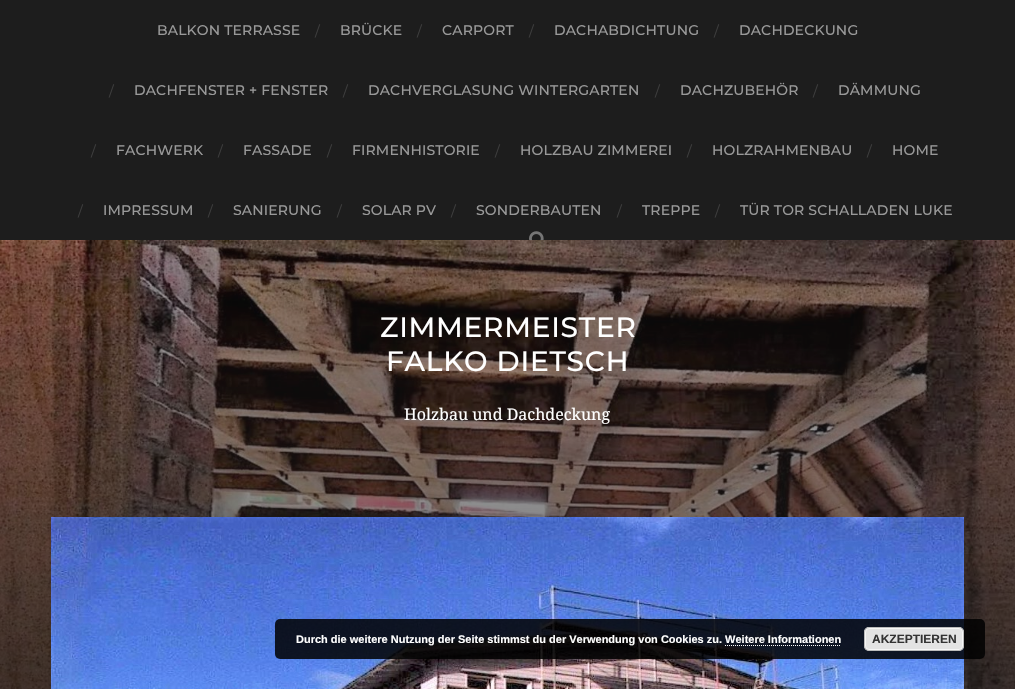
void draw(SkCanvas* canvas) {
	SkPaint fill;
	fill.setAntiAlias(true);
	auto makeFont = [&](const char* family, int weight, float size, bool italic = false) {
		SkFontStyle style(weight, SkFontStyle::kNormal_Width,
			italic ? SkFontStyle::kItalic_Slant : SkFontStyle::kUpright_Slant);
		SkFont result(fontMgr->matchFamilyStyle(family, style), size);
		result.setSubpixel(true);
		return result;
	};
	auto text = [&](const char* s, float x, float y, const SkFont& font) {
		canvas->drawString(s, x, y, font, fill);
	};
	auto spacedText = [&](const char* s, float x, float y, const SkFont& font, const SkPaint& ink, float letter, float word) {
		std::vector<SkGlyphID> glyphs(font.countText(s, strlen(s), SkTextEncoding::kUTF8));
		std::vector<float> xs(glyphs.size());
		font.textToGlyphs(s, strlen(s), SkTextEncoding::kUTF8, glyphs);
		font.getXPos(glyphs, xs, x);
		float extra = 0;
		for (size_t i = 0; i < glyphs.size(); i++) {
			xs[i] += extra;
			extra += letter + word * (glyphs[i] == font.unicharToGlyph(' '));
		}
		canvas->drawTextBlob(SkTextBlob::MakeFromPosHGlyphs(glyphs, xs, y, font), 0, 0, ink);
	};
	auto roundBox = [&](float l, float t, float r, float b, float radius) {
		canvas->drawRoundRect(SkRect::MakeLTRB(l, t, r, b), radius, radius, fill);
	};
	auto picture = [&](const char* path, float l, float t, float r, float b) {
		auto image = SkImages::DeferredFromEncodedData(SkData::MakeFromFileName(path));
		canvas->drawImageRect(image, SkRect::MakeLTRB(l, t, r, b), SkSamplingOptions());
	};
	canvas->clear(0xFF1D1D1D);
	picture("image0.png", 529, 231, 544, 240);
	picture("image1.png", 0, 240, 1015, 689);
	picture("image2.png", 51, 517, 964, 689);
	fill.setColor(0xD9000000);
	roundBox(275, 619, 985, 659, 5);
	fill.setColor(0xFFE3E3E3);
	roundBox(864, 627, 964, 651, 5);
	fill.setStyle(SkPaint::kStroke_Style);
	fill.setStrokeWidth(1);
	fill.setColor(0xFFF6F6F6);
	canvas->drawRoundRect(SkRect::MakeLTRB(865.5f, 628.5f, 962.5f, 649.5f), 3.5f, 3.5f, fill);
	fill.setColor(0xFFBBBBBB);
	canvas->drawRoundRect(SkRect::MakeLTRB(864.5f, 627.5f, 963.5f, 650.5f), 4.5f, 4.5f, fill);
	fill.setColor(0xFFFFFFFF);
	fill.setPathEffect(SkDashPathEffect::Make({{1, 1}}, 0));
	canvas->drawPath(SkPathBuilder().moveTo(725, 645.5f).lineTo(841, 645.5f).detach(), fill);
	fill.setPathEffect(nullptr);
	auto font1 = makeFont("Montserrat", 100, 14);
	fill.setStyle(SkPaint::kFill_Style);
	fill.setColor(0xFF999999);
	spacedText("BALKON TERRASSE", 157, 35, font1, fill, 0.15f, 0);
	auto font2 = makeFont("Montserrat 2", 100, 14);
	fill.setColor(0xFF3D3D3D);
	text("/", 315, 36, font2);
	fill.setColor(0xFF999999);
	spacedText("BRÜCKE", 340, 35, font1, fill, 0.15f, 0);
	fill.setColor(0xFF3D3D3D);
	text("/", 417, 36, font2);
	fill.setColor(0xFF999999);
	spacedText("CARPORT", 442, 35, font1, fill, 0.15f, 0);
	fill.setColor(0xFF3D3D3D);
	text("/", 529, 36, font2);
	fill.setColor(0xFF999999);
	spacedText("DACHABDICHTUNG", 554, 35, font1, fill, 0.15f, 0);
	fill.setColor(0xFF3D3D3D);
	text("/", 714, 36, font2);
	fill.setColor(0xFF999999);
	spacedText("DACHDECKUNG", 739, 35, font1, fill, 0.15f, 0);
	fill.setColor(0xFF3D3D3D);
	text("/", 109, 96, font2);
	fill.setColor(0xFF999999);
	spacedText("DACHFENSTER + FENSTER", 134, 95, font1, fill, 0.15f, 0);
	fill.setColor(0xFF3D3D3D);
	text("/", 343, 96, font2);
	fill.setColor(0xFF999999);
	spacedText("DACHVERGLASUNG WINTERGARTEN", 368, 95, font1, fill, 0.15f, 0);
	fill.setColor(0xFF3D3D3D);
	text("/", 655, 96, font2);
	fill.setColor(0xFF999999);
	spacedText("DACHZUBEHÖR", 680, 95, font1, fill, 0.15f, 0);
	fill.setColor(0xFF3D3D3D);
	text("/", 813, 96, font2);
	fill.setColor(0xFF999999);
	spacedText("DÄMMUNG", 838, 95, font1, fill, 0.15f, 0);
	fill.setColor(0xFF3D3D3D);
	text("/", 91, 156, font2);
	fill.setColor(0xFF999999);
	spacedText("FACHWERK", 116, 155, font1, fill, 0.15f, 0);
	fill.setColor(0xFF3D3D3D);
	text("/", 218, 156, font2);
	fill.setColor(0xFF999999);
	spacedText("FASSADE", 243, 155, font1, fill, 0.15f, 0);
	fill.setColor(0xFF3D3D3D);
	text("/", 327, 156, font2);
	fill.setColor(0xFF999999);
	spacedText("FIRMENHISTORIE", 352, 155, font1, fill, 0.15f, 0);
	fill.setColor(0xFF3D3D3D);
	text("/", 495, 156, font2);
	fill.setColor(0xFF999999);
	spacedText("HOLZBAU ZIMMEREI", 520, 155, font1, fill, 0.15f, 0);
	fill.setColor(0xFF3D3D3D);
	text("/", 687, 156, font2);
	fill.setColor(0xFF999999);
	spacedText("HOLZRAHMENBAU", 712, 155, font1, fill, 0.15f, 0);
	fill.setColor(0xFF3D3D3D);
	text("/", 867, 156, font2);
	fill.setColor(0xFF999999);
	spacedText("HOME", 892, 155, font1, fill, 0.15f, 0);
	fill.setColor(0xFF3D3D3D);
	text("/", 78, 216, font2);
	fill.setColor(0xFF999999);
	spacedText("IMPRESSUM", 103, 215, font1, fill, 0.15f, 0);
	fill.setColor(0xFF3D3D3D);
	text("/", 208, 216, font2);
	fill.setColor(0xFF999999);
	spacedText("SANIERUNG", 233, 215, font1, fill, 0.15f, 0);
	fill.setColor(0xFF3D3D3D);
	text("/", 337, 216, font2);
	fill.setColor(0xFF999999);
	spacedText("SOLAR PV", 362, 215, font1, fill, 0.15f, 0);
	fill.setColor(0xFF3D3D3D);
	text("/", 451, 216, font2);
	fill.setColor(0xFF999999);
	spacedText("SONDERBAUTEN", 476, 215, font1, fill, 0.15f, 0);
	fill.setColor(0xFF3D3D3D);
	text("/", 617, 216, font2);
	fill.setColor(0xFF999999);
	spacedText("TREPPE", 642, 215, font1, fill, 0.15f, 0);
	fill.setColor(0xFF3D3D3D);
	text("/", 715, 216, font2);
	fill.setColor(0xFF999999);
	spacedText("TÜR TOR SCHALLADEN LUKE", 740, 215, font1, fill, 0.15f, 0);
	auto font3 = makeFont("Montserrat", 100, 28);
	fill.setColor(0xFFFFFFFF);
	spacedText("ZIMMERMEISTER", 380, 337, font3, fill, 0.75f, 0);
	spacedText("FALKO DIETSCH", 386, 371, font3, fill, 0.75f, 0);
	auto font4 = makeFont("Droid Serif", 400, 16);
	text("Holzbau und Dachdeckung", 404, 420, font4);
	auto font5 = makeFont("Liberation Sans", 700, 11);
	text("Durch die weitere Nutzung der Seite stimmst du der Verwendung von Cookies zu. Weitere Informationen", 296, 643, font5);
	auto font6 = makeFont("Liberation Sans", 700, 12);
	fill.setColor(0xFF333333);
	text("AKZEPTIEREN", 872, 643, font6);
}
